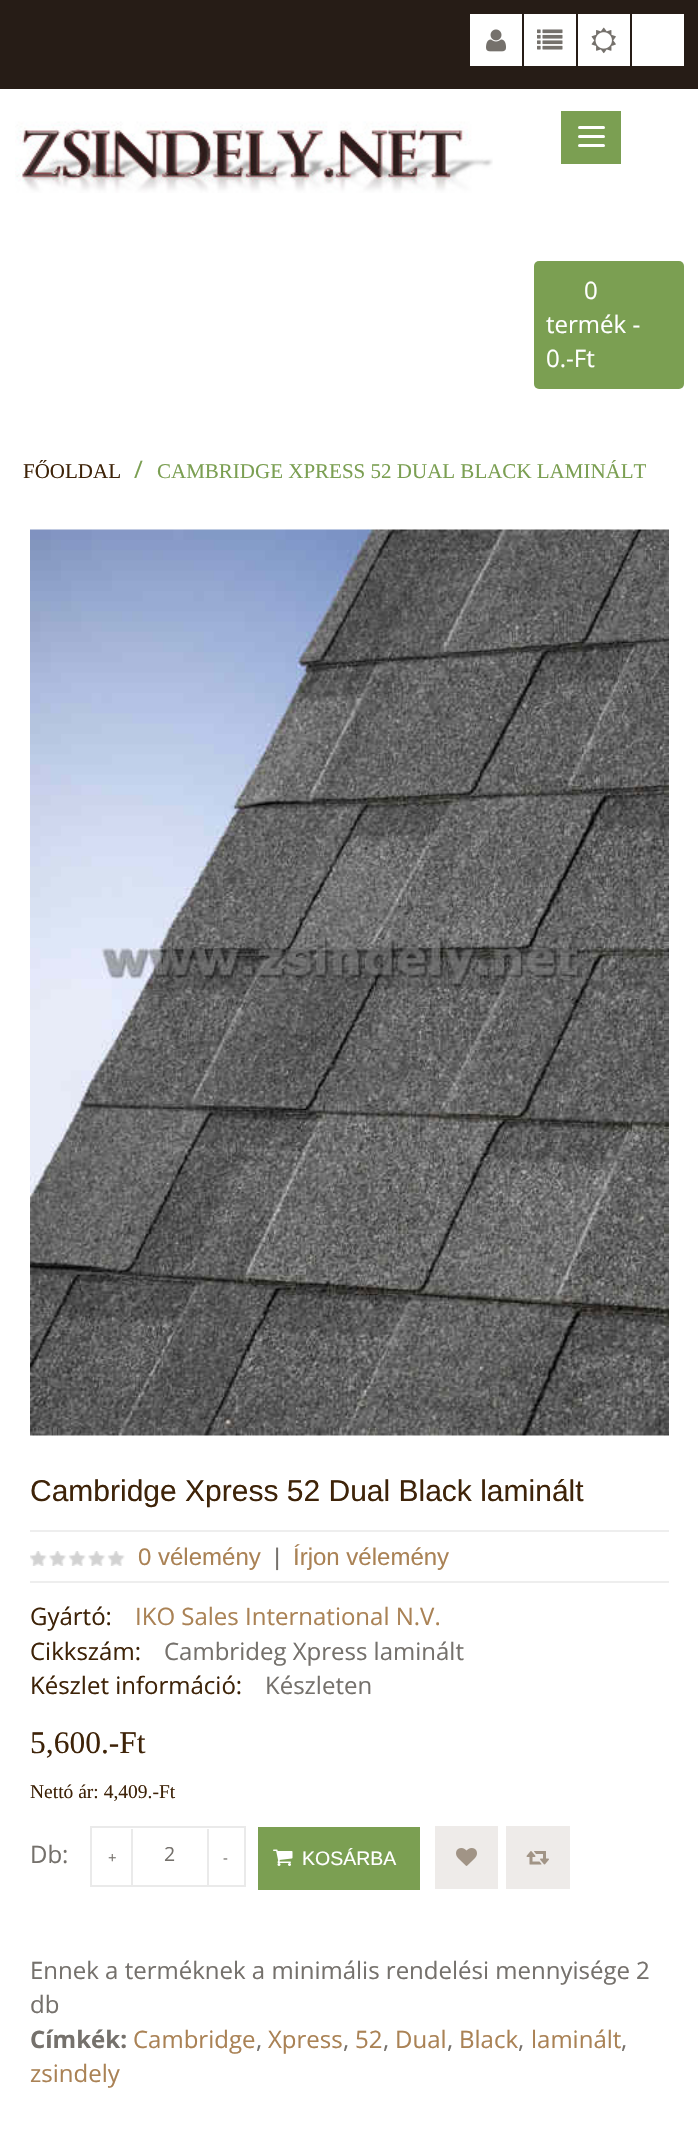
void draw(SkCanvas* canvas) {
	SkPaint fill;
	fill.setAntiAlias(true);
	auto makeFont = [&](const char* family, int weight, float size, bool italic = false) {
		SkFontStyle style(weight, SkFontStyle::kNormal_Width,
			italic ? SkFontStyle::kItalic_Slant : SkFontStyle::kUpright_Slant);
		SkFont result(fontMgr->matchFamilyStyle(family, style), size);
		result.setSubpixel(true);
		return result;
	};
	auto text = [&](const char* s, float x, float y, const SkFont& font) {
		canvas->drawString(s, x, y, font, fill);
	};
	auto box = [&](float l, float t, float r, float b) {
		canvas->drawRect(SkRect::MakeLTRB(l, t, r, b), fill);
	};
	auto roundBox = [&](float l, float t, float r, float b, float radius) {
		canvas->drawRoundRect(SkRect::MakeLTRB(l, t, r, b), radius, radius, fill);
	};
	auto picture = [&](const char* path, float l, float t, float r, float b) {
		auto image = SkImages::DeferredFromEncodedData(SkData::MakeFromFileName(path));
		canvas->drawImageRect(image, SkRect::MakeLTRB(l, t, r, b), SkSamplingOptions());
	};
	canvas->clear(0xFFFFFFFF);
	fill.setColor(0xFF261C16);
	box(0, 0, 698, 89);
	fill.setColor(0xFFFFFFFF);
	box(470, 14, 522, 66);
	picture("image0.png", 486, 29, 506, 52);
	box(524, 14, 576, 66);
	picture("image1.png", 537, 29, 563, 50);
	box(578, 14, 630, 66);
	picture("image2.png", 591, 27, 616, 54);
	box(632, 14, 684, 66);
	picture("image3.png", 15, 121, 493, 193);
	fill.setColor(0xFF7B9F52);
	box(561, 111, 621, 164);
	fill.setColor(0xFFFFFFFF);
	roundBox(578, 126, 605, 129, 1.5f);
	roundBox(578, 135, 605, 138, 1.5f);
	roundBox(578, 144, 605, 147, 1.5f);
	fill.setColor(0xFF7B9F52);
	roundBox(534, 261, 684, 389, 5);
	picture("image4.png", 30, 529, 669, 1436);
	fill.setColor(0xFFEEEEEE);
	box(30, 1530, 669, 1532);
	box(30, 1581, 669, 1583);
	picture("image5.png", 30, 1551, 125, 1566);
	fill.setStyle(SkPaint::kStroke_Style);
	fill.setStrokeWidth(2);
	fill.setColor(0xFFEAEAEA);
	canvas->drawRect(SkRect::MakeLTRB(91, 1827, 245, 1886), fill);
	fill.setStyle(SkPaint::kFill_Style);
	box(131, 1829, 133, 1887);
	box(207, 1829, 209, 1887);
	fill.setColor(0xFF7B9F52);
	box(258, 1827, 420, 1890);
	picture("image6.png", 273, 1849, 293, 1866);
	fill.setColor(0xFFEEEBE9);
	box(435, 1826, 498, 1889);
	picture("image7.png", 456, 1848, 477, 1866);
	box(506, 1826, 570, 1889);
	picture("image8.png", 526, 1851, 549, 1865);
	auto font1 = makeFont("Open Sans", 400, 24);
	fill.setColor(0xFFFFFFFF);
	text("0", 584, 299, font1);
	text("termék -", 546, 333, font1);
	text("0.-Ft", 546, 367, font1);
	auto font2 = makeFont("Liberation Serif", 400, 21);
	fill.setColor(0xFF3E2308);
	text("FŐOLDAL", 23, 478, font2);
	fill.setColor(0xFF7B9F52);
	text("/", 134, 478, font1);
	text("CAMBRIDGE XPRESS 52 DUAL BLACK LAMINÁLT", 157, 478, font2);
	auto font3 = makeFont("Liberation Sans", 400, 30);
	fill.setColor(0xFF3E2308);
	text("Cambridge Xpress 52 Dual Black laminált", 30, 1501, font3);
	auto font4 = makeFont("Liberation Sans", 400, 24);
	fill.setColor(0xFFAA8255);
	text("0 vélemény", 138, 1565, font4);
	fill.setColor(0xFF75716C);
	text("|", 274, 1565, font4);
	fill.setColor(0xFFAA8255);
	text("Írjon vélemény", 293, 1565, font4);
	fill.setColor(0xFF3E2308);
	text("Gyártó:", 30, 1625, font1);
	fill.setColor(0xFFAA8255);
	text("IKO Sales International N.V.", 135, 1625, font1);
	fill.setColor(0xFF3E2308);
	text("Cikkszám:", 30, 1660, font1);
	fill.setColor(0xFF75716C);
	text("Cambrideg Xpress laminált", 164, 1660, font1);
	fill.setColor(0xFF3E2308);
	text("Készlet információ:", 30, 1694, font1);
	fill.setColor(0xFF75716C);
	text("Készleten", 265, 1694, font1);
	auto font5 = makeFont("Liberation Serif", 400, 31.5f);
	fill.setColor(0xFF3E2308);
	text("5,600.-Ft", 30, 1753, font5);
	auto font6 = makeFont("Liberation Serif", 400, 19.5f);
	text("Nettó ár: 4,409.-Ft", 30, 1798, font6);
	fill.setColor(0xFF75716C);
	text("Db:", 30, 1863, font1);
	auto font7 = makeFont("Open Sans", 400, 15);
	text("+", 108, 1863, font7);
	auto font8 = makeFont("Open Sans", 400, 19.5f);
	text("2", 164, 1861, font8);
	text("-", 223, 1863, font7);
	auto font9 = makeFont("Liberation Sans", 400, 19.5f);
	fill.setColor(0xFFFFFFFF);
	text("KOSÁRBA", 302, 1865, font9);
	fill.setColor(0xFF75716C);
	text("Ennek a terméknek a minimális rendelési mennyisége 2", 30, 1979, font1);
	text("db", 30, 2013, font1);
	auto font10 = makeFont("Open Sans", 700, 24);
	text("Címkék:", 30, 2048, font10);
	fill.setColor(0xFFAA8255);
	text("Cambridge", 133, 2048, font1);
	fill.setColor(0xFF75716C);
	text(",", 256, 2048, font1);
	fill.setColor(0xFFAA8255);
	text("Xpress", 268, 2048, font1);
	fill.setColor(0xFF75716C);
	text(",", 343, 2048, font1);
	fill.setColor(0xFFAA8255);
	text("52", 355, 2048, font1);
	fill.setColor(0xFF75716C);
	text(",", 383, 2048, font1);
	fill.setColor(0xFFAA8255);
	text("Dual", 395, 2048, font1);
	fill.setColor(0xFF75716C);
	text(",", 447, 2048, font1);
	fill.setColor(0xFFAA8255);
	text("Black", 459, 2048, font1);
	fill.setColor(0xFF75716C);
	text(",", 518, 2048, font1);
	fill.setColor(0xFFAA8255);
	text("laminált", 531, 2048, font1);
	fill.setColor(0xFF75716C);
	text(",", 621, 2048, font1);
	fill.setColor(0xFFAA8255);
	text("zsindely", 30, 2082, font1);
}
